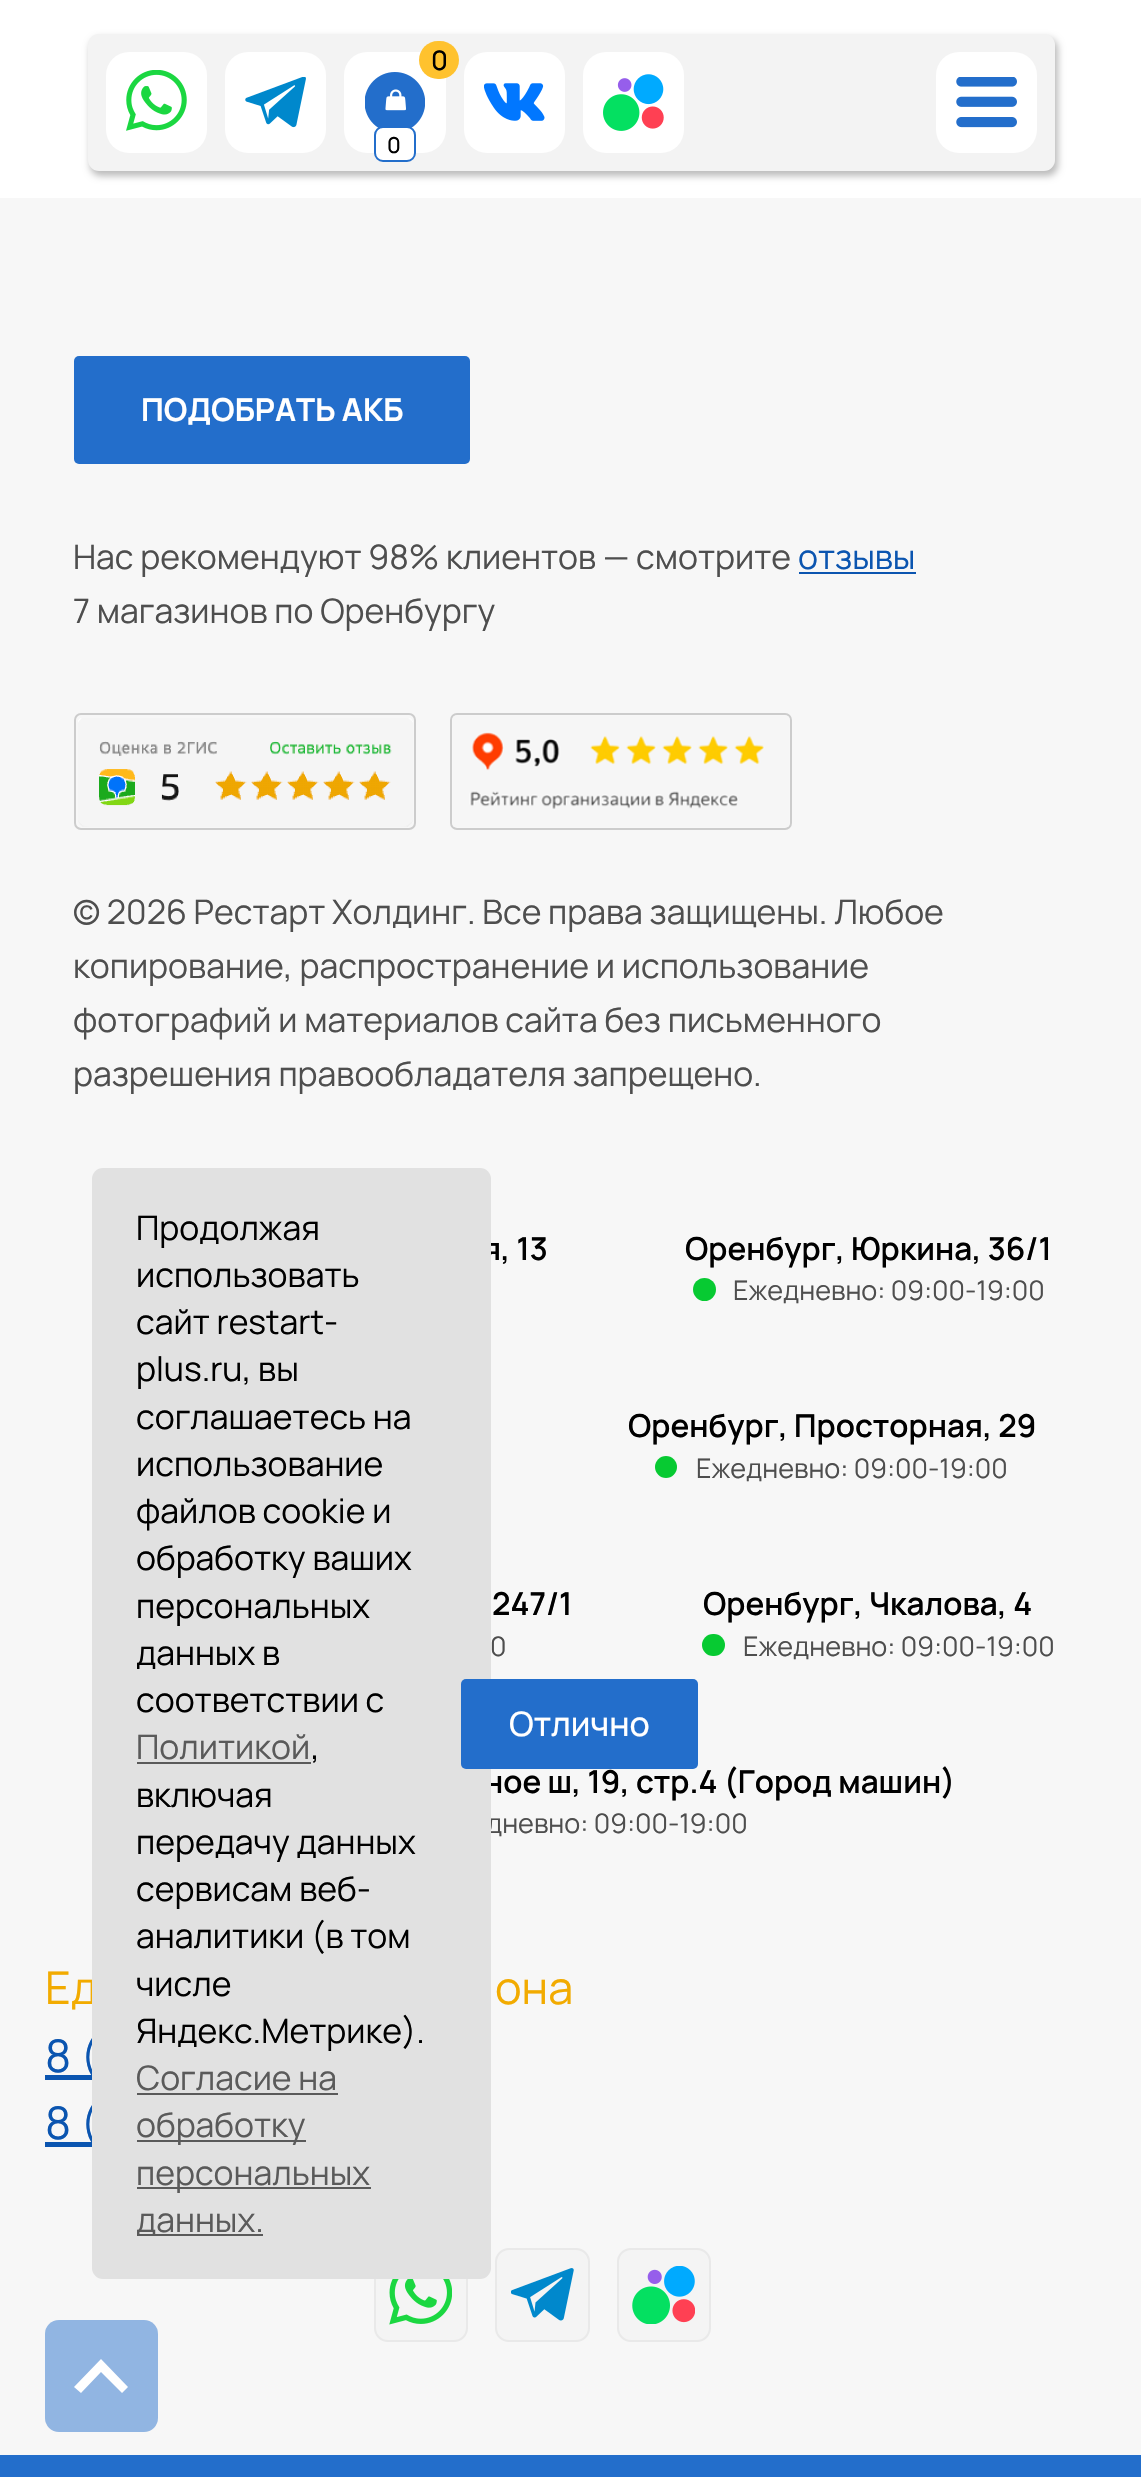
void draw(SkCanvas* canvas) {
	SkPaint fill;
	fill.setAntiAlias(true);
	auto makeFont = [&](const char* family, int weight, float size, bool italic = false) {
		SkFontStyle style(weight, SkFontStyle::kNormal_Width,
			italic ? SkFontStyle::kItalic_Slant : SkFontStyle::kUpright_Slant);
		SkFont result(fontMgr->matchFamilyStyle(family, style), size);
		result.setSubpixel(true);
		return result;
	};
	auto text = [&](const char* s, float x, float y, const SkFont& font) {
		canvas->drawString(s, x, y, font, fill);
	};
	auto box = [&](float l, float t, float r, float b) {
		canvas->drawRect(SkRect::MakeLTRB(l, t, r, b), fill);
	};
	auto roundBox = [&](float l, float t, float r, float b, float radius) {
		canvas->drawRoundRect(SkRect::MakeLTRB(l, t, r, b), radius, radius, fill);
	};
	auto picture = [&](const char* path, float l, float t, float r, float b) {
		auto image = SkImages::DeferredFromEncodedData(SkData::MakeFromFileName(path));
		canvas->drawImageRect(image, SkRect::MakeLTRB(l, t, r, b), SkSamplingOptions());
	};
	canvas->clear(0xFFFFFFFF);
	fill.setColor(0xFFBBBBBB);
	fill.setMaskFilter(SkMaskFilter::MakeBlur(kNormal_SkBlurStyle, 3.5f));
	canvas->drawRoundRect(SkRect::MakeLTRB(90, 38, 1058, 176), 11, 11, fill);
	fill.setMaskFilter(nullptr);
	fill.setColor(0xFFF3F3F3);
	roundBox(88, 34, 1055, 171, 11);
	fill.setColor(0xFFFFFFFF);
	roundBox(106, 52, 207, 153, 23);
	picture("image0.png", 126, 70, 187, 131);
	roundBox(225, 52, 326, 153, 23);
	picture("image1.png", 245, 77, 306, 128);
	roundBox(344, 52, 446, 153, 23);
	picture("image2.png", 365, 72, 425, 128);
	fill.setColor(0xFFFFC22E);
	roundBox(419, 41, 459, 79, 19);
	fill.setColor(0xFFFFFFFF);
	canvas->drawRoundRect(SkRect::MakeLTRB(375, 127, 415, 161), 8, 8, fill);
	fill.setStyle(SkPaint::kStroke_Style);
	fill.setStrokeWidth(2);
	fill.setColor(0xFF236ECB);
	canvas->drawRoundRect(SkRect::MakeLTRB(375, 127, 415, 161), 8, 8, fill);
	fill.setStyle(SkPaint::kFill_Style);
	fill.setColor(0xFFFFFFFF);
	roundBox(464, 52, 565, 153, 23);
	picture("image3.png", 484, 83, 545, 121);
	roundBox(583, 52, 684, 153, 23);
	picture("image4.png", 603, 74, 664, 131);
	roundBox(936, 52, 1037, 153, 23);
	picture("image5.png", 956, 77, 1017, 128);
	fill.setColor(0xFFF7F7F7);
	box(0, 198, 1141, 2455);
	fill.setColor(0xFF236ECB);
	roundBox(74, 356, 470, 464, 5);
	fill.setColor(0xFF0B55B0);
	box(799, 572, 916, 574);
	fill.setStyle(SkPaint::kStroke_Style);
	fill.setColor(0xFFCCCCCC);
	canvas->drawRoundRect(SkRect::MakeLTRB(75, 714, 415, 829), 6, 6, fill);
	picture("image6.png", 78, 718, 413, 827);
	canvas->drawRoundRect(SkRect::MakeLTRB(451, 714, 791, 829), 6, 6, fill);
	picture("image7.png", 452, 716, 790, 827);
	fill.setStyle(SkPaint::kFill_Style);
	fill.setColor(0xFF07CA32);
	canvas->drawCircle(704.5f, 1289.5f, 11.5f, fill);
	canvas->drawCircle(666, 1467, 11, fill);
	roundBox(702, 1634, 725, 1656, 11);
	fill.setColor(0xFF0B55B0);
	box(45, 2075, 92, 2080);
	box(45, 2142, 92, 2147);
	fill.setColor(0xFFF4F4F4);
	canvas->drawRoundRect(SkRect::MakeLTRB(375, 2249, 467, 2341), 13, 13, fill);
	fill.setStyle(SkPaint::kStroke_Style);
	fill.setColor(0xFFE9E9E9);
	canvas->drawRoundRect(SkRect::MakeLTRB(375, 2249, 467, 2341), 13, 13, fill);
	picture("image8.png", 389, 2279, 452, 2325);
	fill.setStyle(SkPaint::kFill_Style);
	fill.setColor(0xFFF4F4F4);
	canvas->drawRoundRect(SkRect::MakeLTRB(496, 2249, 589, 2341), 13, 13, fill);
	fill.setStyle(SkPaint::kStroke_Style);
	fill.setColor(0xFFE9E9E9);
	canvas->drawRoundRect(SkRect::MakeLTRB(496, 2249, 589, 2341), 13, 13, fill);
	picture("image9.png", 511, 2268, 574, 2321);
	fill.setStyle(SkPaint::kFill_Style);
	fill.setColor(0xFFF4F4F4);
	canvas->drawRoundRect(SkRect::MakeLTRB(618, 2249, 710, 2341), 13, 13, fill);
	fill.setStyle(SkPaint::kStroke_Style);
	fill.setColor(0xFFE9E9E9);
	canvas->drawRoundRect(SkRect::MakeLTRB(618, 2249, 710, 2341), 13, 13, fill);
	picture("image10.png", 632, 2266, 695, 2324);
	fill.setStyle(SkPaint::kFill_Style);
	fill.setColor(0xFF236ECB);
	box(0, 2455, 1141, 2477);
	fill.setColor(0xFF91B5E2);
	roundBox(45, 2320, 158, 2432, 14);
	fill.setColor(0xFFFFFFFF);
	canvas->drawPath(SkPathBuilder().moveTo(74, 2387).lineTo(81, 2393).lineTo(101, 2372).lineTo(122, 2393).lineTo(128, 2387).lineTo(101, 2359).close().detach(), fill);
	auto font1 = makeFont("Manrope", 500, 27);
	fill.setColor(0xFF000000);
	text("0", 431, 70, font1);
	auto font2 = makeFont("Manrope", 500, 22);
	text("0", 387, 153, font2);
	auto font3 = makeFont("Manrope", 700, 31.5f);
	fill.setColor(0xFFFFFFFF);
	text("ПОДОБРАТЬ АКБ", 141, 421, font3);
	auto font4 = makeFont("Manrope", 400, 33.75f);
	fill.setColor(0xFF4E4E4E);
	text("Нас рекомендуют 98% клиентов — смотрите", 73, 569, font4);
	fill.setColor(0xFF0B55B0);
	text("отзывы", 798, 569, font4);
	fill.setColor(0xFF4E4E4E);
	text("7 магазинов по Оренбургу", 73, 623, font4);
	text("© 2026 Рестарт Холдинг. Все права защищены. Любое", 73, 924, font4);
	text("копирование, распространение и использование", 73, 978, font4);
	text("фотографий и материалов сайта без письменного", 73, 1032, font4);
	text("разрешения правообладателя запрещено.", 73, 1086, font4);
	auto font5 = makeFont("Manrope", 600, 31.5f);
	fill.setColor(0xFF000000);
	text("я, 13", 483, 1260, font5);
	text("Оренбург, Юркина, 36/1", 685, 1260, font5);
	auto font6 = makeFont("Manrope", 400, 27);
	fill.setColor(0xFF4E4E4E);
	text("Ежедневно: 09:00-19:00", 733, 1300, font6);
	fill.setColor(0xFF000000);
	text("Оренбург, Просторная, 29", 628, 1437, font5);
	fill.setColor(0xFF4E4E4E);
	text("Ежедневно: 09:00-19:00", 696, 1478, font6);
	fill.setColor(0xFF000000);
	text("247/1", 492, 1615, font5);
	fill.setColor(0xFF4E4E4E);
	text("0", 490, 1656, font6);
	fill.setColor(0xFF000000);
	text("Оренбург, Чкалова, 4", 703, 1615, font5);
	fill.setColor(0xFF4E4E4E);
	text("Ежедневно: 09:00-19:00", 743, 1656, font6);
	fill.setColor(0xFF000000);
	text("ное ш, 19, стр.4 (Город машин)", 484, 1793, font5);
	fill.setColor(0xFF4E4E4E);
	text("дневно: 09:00-19:00", 486, 1833, font6);
	auto font7 = makeFont("Manrope", 400, 45);
	fill.setColor(0xFFF2AB00);
	text("Ед", 45, 2004, font7);
	text("она", 495, 2004, font7);
	fill.setColor(0xFF0B55B0);
	text("8 (", 45, 2072, font7);
	text("8 (", 45, 2139, font7);
	fill.setColor(0xFFE1E1E1);
	roundBox(92, 1168, 491, 2279, 11);
	fill.setColor(0xFF000000);
	text("Продолжая", 136, 1240, font4);
	text("использовать", 136, 1287, font4);
	text("сайт restart-", 136, 1334, font4);
	text("plus.ru, вы", 136, 1381, font4);
	text("соглашаетесь на", 136, 1429, font4);
	text("использование", 136, 1476, font4);
	text("файлов cookie и", 136, 1523, font4);
	text("обработку ваших", 136, 1570, font4);
	text("персональных", 136, 1618, font4);
	text("данных в", 136, 1665, font4);
	text("соответствии с", 136, 1712, font4);
	fill.setColor(0xFF5A5A5A);
	text("Политикой", 136, 1759, font4);
	box(137, 1762, 311, 1764);
	fill.setColor(0xFF000000);
	text(",", 311, 1759, font4);
	text("включая", 136, 1807, font4);
	text("передачу данных", 136, 1854, font4);
	text("сервисам веб-", 136, 1901, font4);
	text("аналитики (в том", 136, 1948, font4);
	text("числе", 136, 1996, font4);
	text("Яндекс.Метрике).", 136, 2043, font4);
	fill.setColor(0xFF5A5A5A);
	text("Согласие на", 136, 2090, font4);
	box(137, 2093, 338, 2095);
	box(137, 2140, 306, 2142);
	text("обработку", 136, 2137, font4);
	box(137, 2187, 371, 2189);
	text("персональных", 136, 2185, font4);
	box(137, 2234, 263, 2236);
	text("данных.", 136, 2232, font4);
	fill.setColor(0xFF236ECB);
	roundBox(461, 1679, 698, 1769, 5);
	auto font8 = makeFont("Manrope", 500, 33.75f);
	fill.setColor(0xFFFFFFFF);
	text("Отлично", 509, 1736, font8);
}
